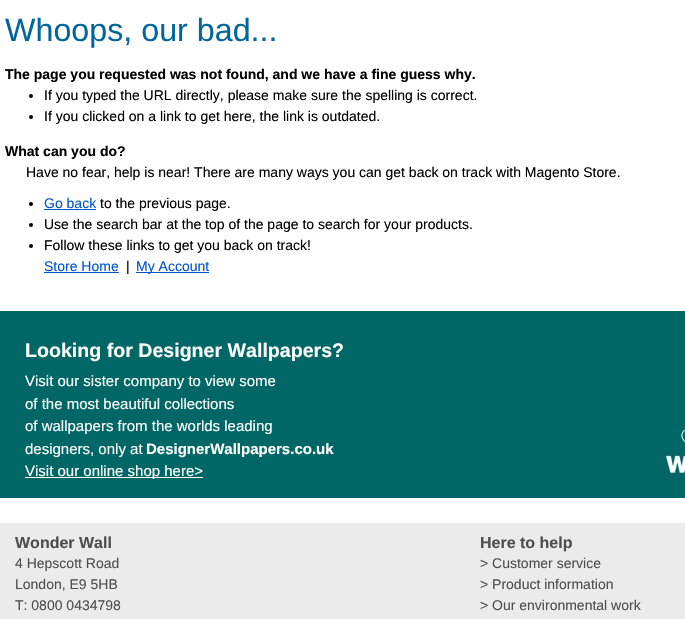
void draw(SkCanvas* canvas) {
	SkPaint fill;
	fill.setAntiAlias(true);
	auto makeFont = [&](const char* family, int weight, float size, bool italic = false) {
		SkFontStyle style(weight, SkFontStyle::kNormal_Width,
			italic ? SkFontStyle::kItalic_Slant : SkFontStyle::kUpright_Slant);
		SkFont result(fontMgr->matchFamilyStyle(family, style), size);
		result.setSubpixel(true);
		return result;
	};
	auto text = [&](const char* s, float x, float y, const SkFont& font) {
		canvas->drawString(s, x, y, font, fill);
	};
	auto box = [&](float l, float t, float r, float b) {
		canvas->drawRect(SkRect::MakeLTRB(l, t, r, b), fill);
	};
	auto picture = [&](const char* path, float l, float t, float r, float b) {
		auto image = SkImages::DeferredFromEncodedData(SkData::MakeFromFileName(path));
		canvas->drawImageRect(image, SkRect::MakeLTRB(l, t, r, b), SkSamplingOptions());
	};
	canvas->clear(0xFFFFFFFF);
	fill.setColor(0xFF000000);
	canvas->drawCircle(31, 96, 2, fill);
	canvas->drawCircle(31, 117, 2, fill);
	canvas->drawCircle(31, 204, 2, fill);
	fill.setColor(0xFF0055CC);
	box(44, 209, 96, 210);
	fill.setColor(0xFF000000);
	canvas->drawCircle(31, 225, 2, fill);
	canvas->drawCircle(31, 246, 2, fill);
	fill.setColor(0xFF0055CC);
	box(44, 272, 119, 273);
	box(136, 272, 209, 273);
	fill.setColor(0xFF006766);
	box(0, 311, 685, 498);
	fill.setColor(0xFFFFFFFF);
	box(25, 477, 203, 478);
	picture("image0.png", 660, 423, 685, 485);
	fill.setColor(0xFFEBEBEB);
	box(0, 523, 685, 619);
	auto font1 = makeFont("Liberation Sans", 400, 32.25f);
	fill.setColor(0xFF01669C);
	text("Whoops, our bad...", 5, 41, font1);
	auto font2 = makeFont("Liberation Sans", 700, 14);
	fill.setColor(0xFF000000);
	text("The page you requested was not found, and we have a fine guess why.", 5, 79, font2);
	auto font3 = makeFont("Liberation Sans", 400, 14);
	text("If you typed the URL directly, please make sure the spelling is correct.", 44, 100, font3);
	text("If you clicked on a link to get here, the link is outdated.", 44, 121, font3);
	text("What can you do?", 5, 156, font2);
	text("Have no fear, help is near! There are many ways you can get back on track with Magento Store.", 26, 177, font3);
	fill.setColor(0xFF0055CC);
	text("Go back", 44, 208, font3);
	fill.setColor(0xFF000000);
	text("to the previous page.", 100, 208, font3);
	text("Use the search bar at the top of the page to search for your products.", 44, 229, font3);
	text("Follow these links to get you back on track!", 44, 250, font3);
	fill.setColor(0xFF0055CC);
	text("Store Home", 44, 271, font3);
	fill.setColor(0xFF000000);
	text("|", 126, 271, font3);
	fill.setColor(0xFF0055CC);
	text("My Account", 136, 271, font3);
	auto font4 = makeFont("Liberation Sans", 700, 19.6f);
	fill.setColor(0xFFFFFFFF);
	text("Looking for Designer Wallpapers?", 25, 357, font4);
	auto font5 = makeFont("Liberation Sans", 400, 15);
	text("Visit our sister company to view some", 25, 386, font5);
	text("of the most beautiful collections", 25, 409, font5);
	text("of wallpapers from the worlds leading", 25, 431, font5);
	text("designers, only at", 25, 454, font5);
	auto font6 = makeFont("Liberation Sans", 700, 15);
	text("DesignerWallpapers.co.uk", 146, 454, font6);
	text("Visit our online shop here>", 25, 476, font5);
	auto font7 = makeFont("Liberation Sans", 700, 16);
	fill.setColor(0xFF4E4E4E);
	text("Wonder Wall", 15, 548, font7);
	text("4 Hepscott Road", 15, 568, font3);
	text("London, E9 5HB", 15, 589, font3);
	text("T: 0800 0434798", 15, 610, font3);
	text("Here to help", 480, 548, font7);
	text("> Customer service", 480, 568, font3);
	text("> Product information", 480, 589, font3);
	text("> Our environmental work", 480, 610, font3);
}
